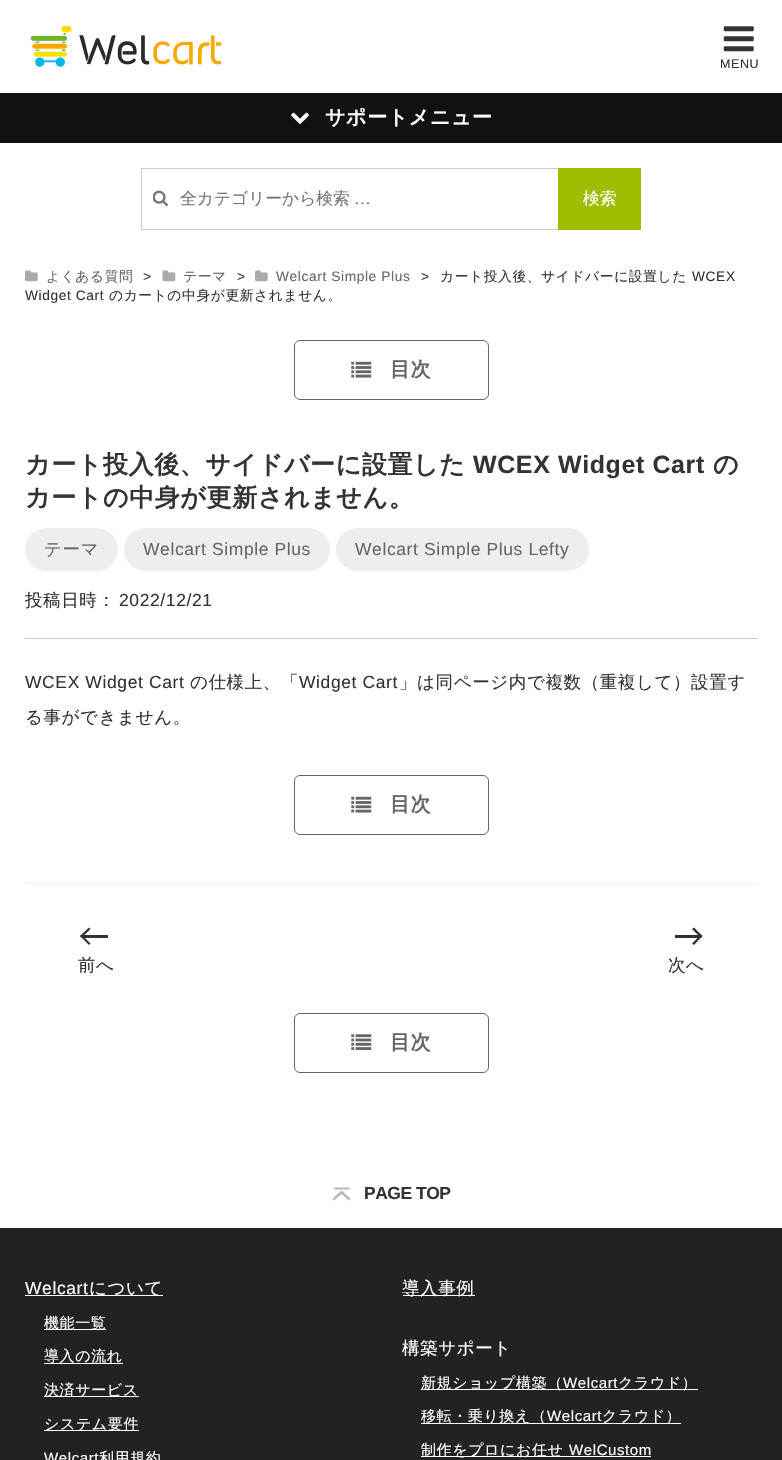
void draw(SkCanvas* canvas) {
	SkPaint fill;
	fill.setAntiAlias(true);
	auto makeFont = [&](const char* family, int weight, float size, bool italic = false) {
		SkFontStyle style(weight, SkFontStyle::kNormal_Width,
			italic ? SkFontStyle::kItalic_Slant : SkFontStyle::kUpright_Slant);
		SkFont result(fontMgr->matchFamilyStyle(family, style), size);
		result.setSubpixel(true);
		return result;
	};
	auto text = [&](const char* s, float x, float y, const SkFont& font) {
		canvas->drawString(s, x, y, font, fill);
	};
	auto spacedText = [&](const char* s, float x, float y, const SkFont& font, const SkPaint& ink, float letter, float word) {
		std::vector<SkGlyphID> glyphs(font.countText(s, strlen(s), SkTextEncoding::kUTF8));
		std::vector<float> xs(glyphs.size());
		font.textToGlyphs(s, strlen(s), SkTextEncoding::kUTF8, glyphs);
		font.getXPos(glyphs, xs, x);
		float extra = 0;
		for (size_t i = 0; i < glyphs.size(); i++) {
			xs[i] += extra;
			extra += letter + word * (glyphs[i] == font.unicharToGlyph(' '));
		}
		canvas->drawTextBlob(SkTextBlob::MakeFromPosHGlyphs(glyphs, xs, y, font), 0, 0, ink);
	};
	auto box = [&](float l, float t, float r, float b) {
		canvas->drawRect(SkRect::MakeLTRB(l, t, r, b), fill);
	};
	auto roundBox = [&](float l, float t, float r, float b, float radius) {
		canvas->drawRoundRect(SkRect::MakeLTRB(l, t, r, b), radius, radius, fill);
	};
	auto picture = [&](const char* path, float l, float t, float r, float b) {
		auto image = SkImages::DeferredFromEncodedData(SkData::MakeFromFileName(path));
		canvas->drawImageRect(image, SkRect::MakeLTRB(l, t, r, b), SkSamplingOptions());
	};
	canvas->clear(0xFFFFFFFF);
	picture("image0.png", 30, 25, 222, 67);
	picture("image1.png", 723, 26, 754, 52);
	fill.setColor(0xFF111111);
	box(0, 93, 782, 143);
	picture("image2.png", 291, 112, 309, 124);
	fill.setStyle(SkPaint::kStroke_Style);
	fill.setStrokeWidth(1);
	fill.setColor(0xFFCCCCCC);
	canvas->drawRect(SkRect::MakeLTRB(141.5f, 168.5f, 640.5f, 229.5f), fill);
	picture("image3.png", 153, 190, 168, 207);
	fill.setStyle(SkPaint::kFill_Style);
	fill.setColor(0xFF9EBE04);
	box(558, 168, 641, 230);
	picture("image4.png", 25, 270, 38, 282);
	picture("image5.png", 162, 270, 176, 282);
	picture("image4.png", 255, 270, 268, 282);
	fill.setStyle(SkPaint::kStroke_Style);
	fill.setColor(0xFF666666);
	canvas->drawRoundRect(SkRect::MakeLTRB(294.5f, 340.5f, 488.5f, 399.5f), 5.5f, 5.5f, fill);
	picture("image6.png", 351, 361, 372, 378);
	fill.setStyle(SkPaint::kFill_Style);
	fill.setColor(0xFFCCCCCC);
	box(25, 638, 758, 639);
	fill.setColor(0xFFEEEEEE);
	roundBox(25, 528, 118, 571, 21.5f);
	roundBox(124, 528, 330, 571, 21.5f);
	roundBox(336, 528, 589, 571, 21.5f);
	fill.setStyle(SkPaint::kStroke_Style);
	fill.setColor(0xFF666666);
	canvas->drawRoundRect(SkRect::MakeLTRB(294.5f, 775.5f, 488.5f, 834.5f), 5.5f, 5.5f, fill);
	picture("image6.png", 351, 796, 372, 813);
	fill.setStyle(SkPaint::kFill_Style);
	fill.setColor(0xFFEEEEEE);
	box(25, 883, 758, 884);
	fill.setColor(0xFF333333);
	canvas->drawPath(SkPathBuilder().moveTo(80, 936).lineTo(89, 927.5f).lineTo(90.5f, 929).lineTo(81.5f, 938).close().detach(), fill);
	canvas->drawPath(SkPathBuilder().moveTo(80, 936).lineTo(81.5f, 934.5f).lineTo(90.5f, 943.5f).lineTo(89, 945).close().detach(), fill);
	box(83, 935, 108, 938);
	canvas->drawPath(SkPathBuilder().moveTo(702.5f, 936).lineTo(694, 945).lineTo(692, 943.5f).lineTo(701, 934.5f).close().detach(), fill);
	canvas->drawPath(SkPathBuilder().moveTo(702.5f, 936).lineTo(701, 938).lineTo(692, 929).lineTo(694, 927.5f).close().detach(), fill);
	box(675, 935, 700, 938);
	fill.setStyle(SkPaint::kStroke_Style);
	fill.setColor(0xFF666666);
	canvas->drawRoundRect(SkRect::MakeLTRB(294.5f, 1013.5f, 488.5f, 1072.5f), 5.5f, 5.5f, fill);
	picture("image7.png", 351, 1034, 372, 1050);
	picture("image8.png", 332, 1187, 351, 1201);
	fill.setStyle(SkPaint::kFill_Style);
	fill.setColor(0xFF222222);
	box(0, 1228, 782, 1460);
	fill.setColor(0xFFFFFFFF);
	box(25, 1295, 163, 1296);
	box(44, 1329, 106, 1330);
	box(44, 1363, 123, 1364);
	box(44, 1396, 139, 1397);
	box(44, 1430, 139, 1431);
	box(403, 1295, 475, 1296);
	box(421, 1389, 698, 1390);
	box(421, 1423, 681, 1424);
	box(421, 1456, 651, 1457);
	auto font1 = makeFont("Liberation Sans", 400, 12.5f);
	fill.setColor(0xFF333333);
	spacedText("MENU", 720, 68, font1, fill, 0.6f, 0);
	auto font2 = makeFont("WenQuanYi Zen Hei", 700, 20);
	fill.setColor(0xFFFFFFFF);
	spacedText("サポートメニュー", 325, 124, font2, fill, 0.6f, 0);
	auto font3 = makeFont("WenQuanYi Zen Hei", 500, 16.75f);
	fill.setColor(0xFF757575);
	text("全カテゴリーから検索", 180, 204, font3);
	auto font4 = makeFont("Liberation Serif", 400, 16.75f);
	text("…", 354, 204, font4);
	fill.setColor(0xFFFFFFFF);
	text("検索", 583, 204, font3);
	auto font5 = makeFont("Liberation Sans", 400, 13.75f);
	fill.setColor(0xFF333333);
	spacedText(">", 421, 281, font5, fill, 0.6f, 0);
	auto font6 = makeFont("WenQuanYi Zen Hei", 500, 13.75f);
	spacedText("カート投入後、サイドバーに設置した", 440, 281, font6, fill, 0.6f, 0);
	spacedText("WCEX", 692, 281, font5, fill, 0.6f, 0);
	spacedText("Widget Cart", 25, 300, font5, fill, 0.6f, 0);
	spacedText("のカートの中身が更新されません。", 109, 300, font6, fill, 0.6f, 0);
	fill.setColor(0xFF666666);
	spacedText("よくある質問", 46, 281, font6, fill, 0.6f, 0);
	fill.setColor(0xFF333333);
	spacedText(">", 143, 281, font5, fill, 0.6f, 0);
	fill.setColor(0xFF666666);
	spacedText("テーマ", 183, 281, font6, fill, 0.6f, 0);
	fill.setColor(0xFF333333);
	spacedText(">", 237, 281, font5, fill, 0.6f, 0);
	fill.setColor(0xFF666666);
	spacedText("Welcart Simple Plus", 276, 281, font5, fill, 0.6f, 0);
	spacedText("目次", 390, 376, font2, fill, 0.6f, 0);
	auto font7 = makeFont("WenQuanYi Zen Hei", 700, 25);
	fill.setColor(0xFF333333);
	spacedText("カート投入後、サイドバーに設置した", 25, 473, font7, fill, 0.6f, 0);
	auto font8 = makeFont("Liberation Sans", 700, 25);
	spacedText("WCEX Widget Cart", 473, 473, font8, fill, 0.6f, 0);
	spacedText("の", 713, 473, font7, fill, 0.6f, 0);
	spacedText("カートの中身が更新されません。", 25, 506, font7, fill, 0.6f, 0);
	auto font9 = makeFont("WenQuanYi Zen Hei", 500, 17.5f);
	fill.setColor(0xFF666666);
	spacedText("テーマ", 44, 555, font9, fill, 0.6f, 0);
	auto font10 = makeFont("Liberation Sans", 400, 17.5f);
	spacedText("Welcart Simple Plus", 143, 555, font10, fill, 0.6f, 0);
	spacedText("Welcart Simple Plus Lefty", 355, 555, font10, fill, 0.6f, 0);
	fill.setColor(0xFF333333);
	spacedText("投稿日時：", 25, 606, font9, fill, 0.6f, 0);
	spacedText("2022/12/21", 119, 606, font10, fill, 0.6f, 0);
	spacedText("WCEX Widget Cart", 25, 688, font10, fill, 0.6f, 0);
	spacedText("の仕様上、「", 190, 688, font9, fill, 0.6f, 0);
	spacedText("Widget Cart", 299, 688, font10, fill, 0.6f, 0);
	spacedText("」は同ページ内で複数（重複して）設置す", 399, 688, font9, fill, 0.6f, 0);
	spacedText("る事ができません。", 25, 723, font9, fill, 0.6f, 0);
	fill.setColor(0xFF666666);
	spacedText("目次", 390, 811, font2, fill, 0.6f, 0);
	fill.setColor(0xFF333333);
	spacedText("前へ", 78, 971, font9, fill, 0.6f, 0);
	spacedText("次へ", 668, 971, font9, fill, 0.6f, 0);
	fill.setColor(0xFF666666);
	spacedText("目次", 390, 1049, font2, fill, 0.6f, 0);
	auto font11 = makeFont("Liberation Sans", 700, 17.5f);
	fill.setColor(0xFF333333);
	spacedText("PAGE TOP", 364, 1199, font11, fill, -0.5f, 0);
	fill.setColor(0xFFFFFFFF);
	spacedText("Welcart", 25, 1294, font10, fill, 0.6f, 0);
	spacedText("について", 89, 1294, font9, fill, 0.6f, 0);
	auto font12 = makeFont("WenQuanYi Zen Hei", 500, 15);
	spacedText("機能一覧", 44, 1328, font12, fill, 0.6f, 0);
	spacedText("導入の流れ", 44, 1361, font12, fill, 0.6f, 0);
	spacedText("決済サービス", 44, 1395, font12, fill, 0.6f, 0);
	spacedText("システム要件", 44, 1429, font12, fill, 0.6f, 0);
	auto font13 = makeFont("Liberation Sans", 400, 15);
	spacedText("Welcart", 44, 1463, font13, fill, 0.6f, 0);
	spacedText("利用規約", 99, 1463, font12, fill, 0.6f, 0);
	spacedText("導入事例", 402, 1294, font9, fill, 0.6f, 0);
	spacedText("構築サポート", 402, 1354, font9, fill, 0.6f, 0);
	spacedText("新規ショップ構築（", 421, 1388, font12, fill, 0.6f, 0);
	spacedText("Welcart", 563, 1388, font13, fill, 0.6f, 0);
	spacedText("クラウド）", 618, 1388, font12, fill, 0.6f, 0);
	spacedText("移転・乗り換え（", 421, 1421, font12, fill, 0.6f, 0);
	spacedText("Welcart", 547, 1421, font13, fill, 0.6f, 0);
	spacedText("クラウド）", 602, 1421, font12, fill, 0.6f, 0);
	spacedText("制作をプロにお任せ", 421, 1455, font12, fill, 0.6f, 0);
	spacedText("WelCustom", 569, 1455, font13, fill, 0.6f, 0);
}
